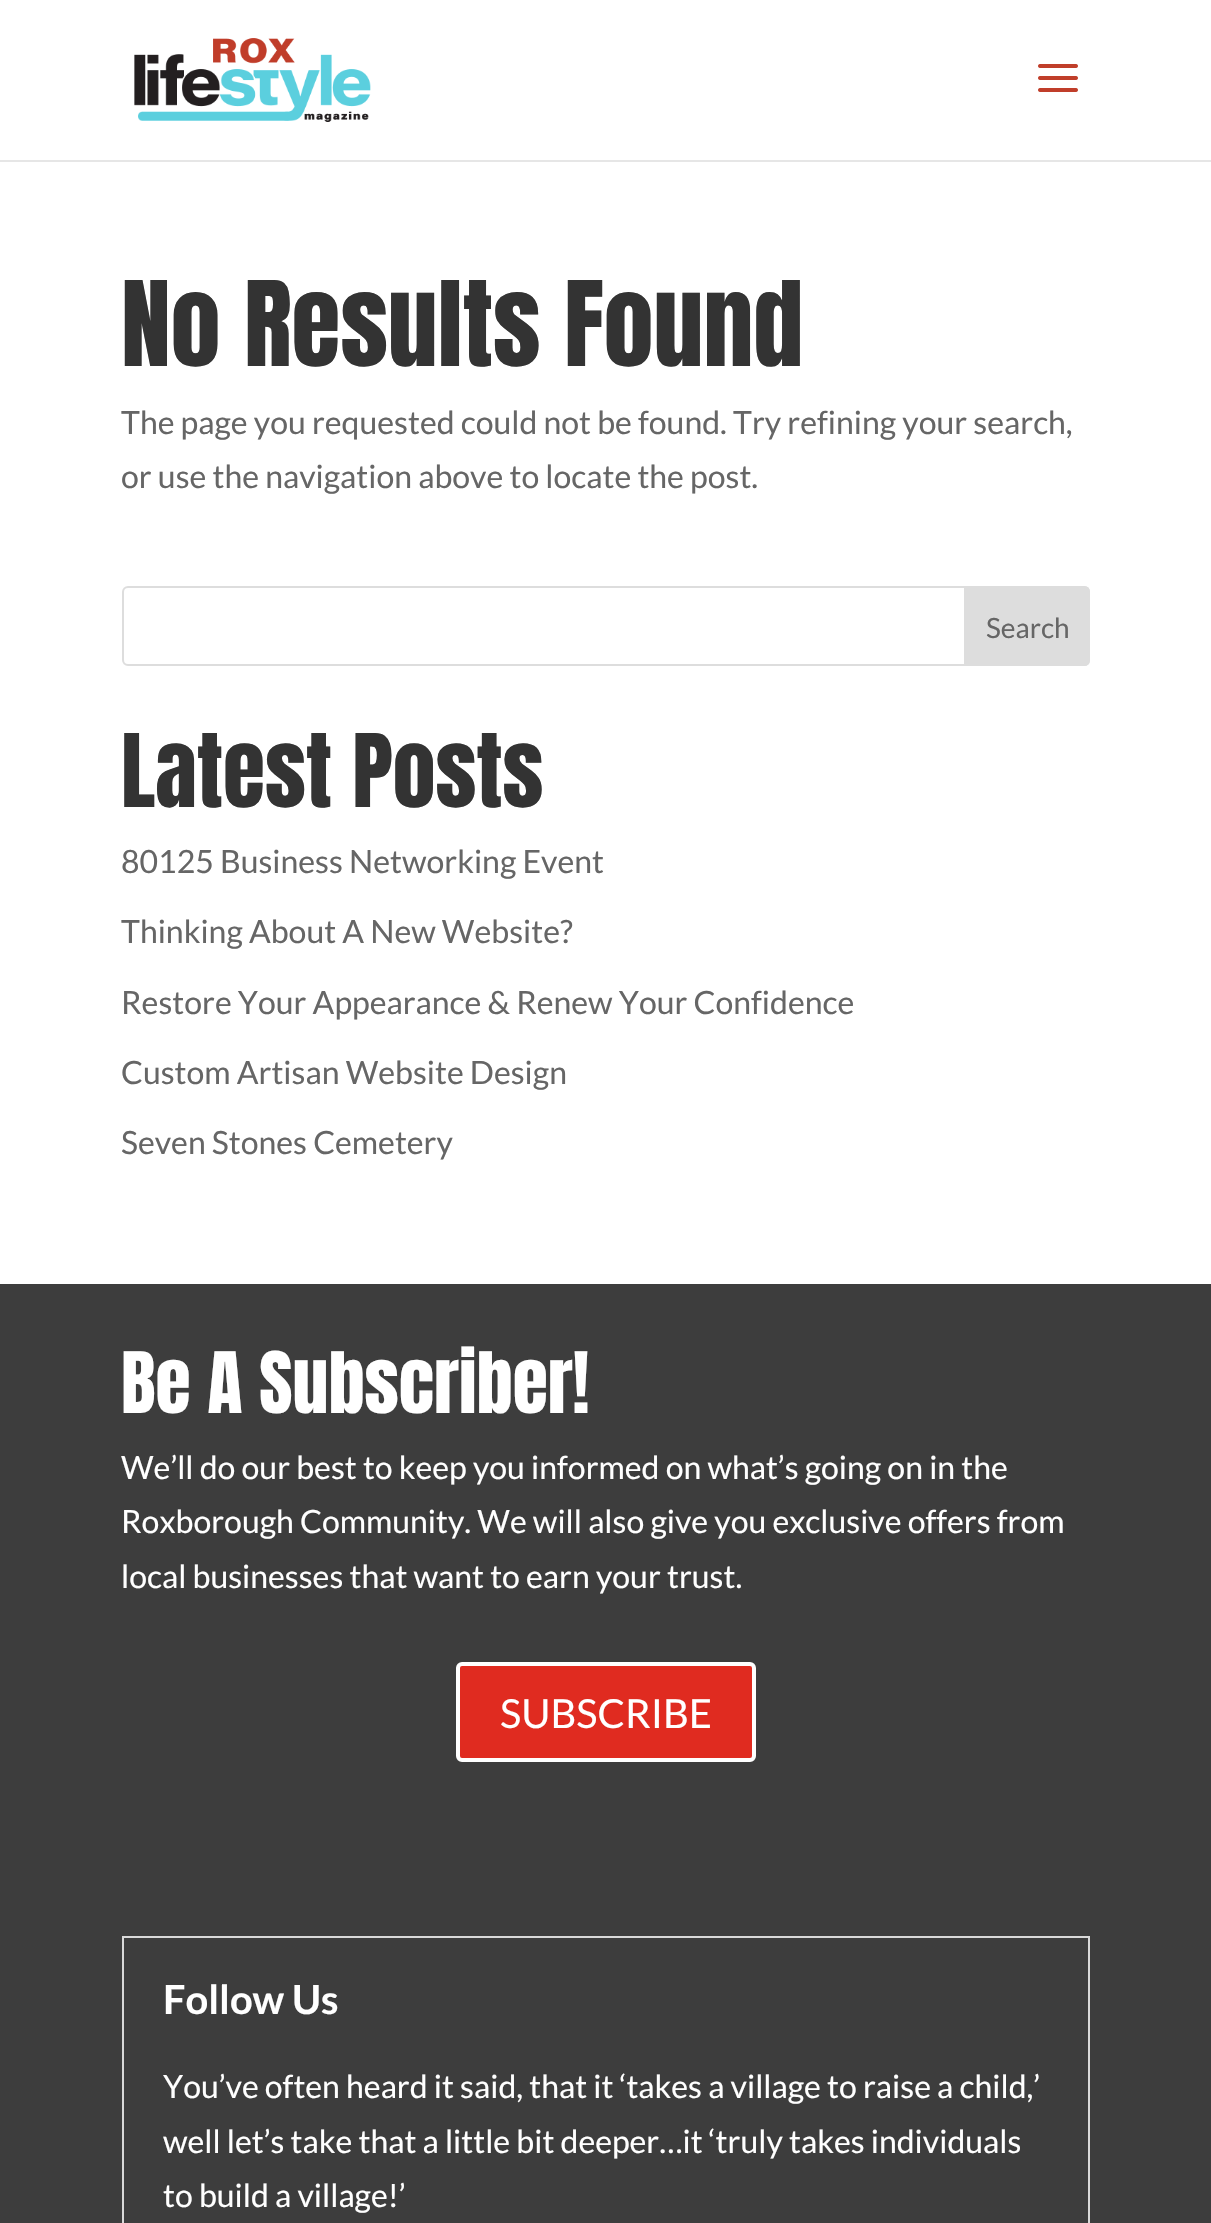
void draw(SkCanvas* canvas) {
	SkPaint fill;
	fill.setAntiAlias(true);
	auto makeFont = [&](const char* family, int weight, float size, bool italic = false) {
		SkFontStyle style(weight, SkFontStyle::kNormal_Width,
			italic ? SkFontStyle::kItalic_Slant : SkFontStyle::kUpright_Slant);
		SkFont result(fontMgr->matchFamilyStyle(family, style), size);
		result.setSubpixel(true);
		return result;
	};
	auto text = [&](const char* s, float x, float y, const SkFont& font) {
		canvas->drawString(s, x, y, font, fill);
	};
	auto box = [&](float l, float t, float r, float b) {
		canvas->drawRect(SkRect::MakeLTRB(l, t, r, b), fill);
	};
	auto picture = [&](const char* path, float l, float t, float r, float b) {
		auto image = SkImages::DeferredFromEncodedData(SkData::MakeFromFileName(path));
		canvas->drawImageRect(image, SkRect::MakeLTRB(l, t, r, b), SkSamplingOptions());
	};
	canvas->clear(0xFFFFFFFF);
	fill.setColor(0xFFE6E6E6);
	box(0, 160, 1211, 162);
	picture("image0.png", 134, 38, 371, 122);
	picture("image1.png", 1038, 64, 1078, 92);
	fill.setStyle(SkPaint::kStroke_Style);
	fill.setStrokeWidth(2);
	fill.setColor(0xFFDDDDDD);
	canvas->drawRoundRect(SkRect::MakeLTRB(123, 587, 1089, 665), 5, 5, fill);
	fill.setStyle(SkPaint::kFill_Style);
	canvas->drawPath(SkPathBuilder().moveTo(965, 587).lineTo(1084, 587).cubicTo(1087, 587, 1089, 589, 1089, 592).lineTo(1089, 660).cubicTo(1089, 663, 1087, 665, 1084, 665).lineTo(965, 665).close().detach(), fill);
	fill.setStyle(SkPaint::kStroke_Style);
	canvas->drawPath(SkPathBuilder().moveTo(965, 587).lineTo(1084, 587).cubicTo(1087, 587, 1089, 589, 1089, 592).lineTo(1089, 660).cubicTo(1089, 663, 1087, 665, 1084, 665).lineTo(965, 665).close().detach(), fill);
	fill.setStyle(SkPaint::kFill_Style);
	fill.setColor(0xFF3D3D3D);
	box(0, 1284, 1211, 2223);
	fill.setColor(0xFFE02B20);
	canvas->drawRoundRect(SkRect::MakeLTRB(458, 1664, 754, 1760), 4, 4, fill);
	fill.setStyle(SkPaint::kStroke_Style);
	fill.setStrokeWidth(4);
	fill.setColor(0xFFFFFFFF);
	canvas->drawRoundRect(SkRect::MakeLTRB(458, 1664, 754, 1760), 4, 4, fill);
	fill.setStrokeWidth(2);
	fill.setColor(0xFFD9D9D9);
	canvas->drawRect(SkRect::MakeLTRB(123, 1937, 1089, 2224), fill);
	auto font1 = makeFont("Anton", 400, 100);
	fill.setStyle(SkPaint::kFill_Style);
	fill.setColor(0xFF333333);
	text("No Results Found", 121, 366, font1);
	auto font2 = makeFont("Lato", 400, 32);
	fill.setColor(0xFF666666);
	text("The page you requested could not be found. Try refining your search,", 121, 434, font2);
	text("or use the navigation above to locate the post.", 121, 488, font2);
	auto font3 = makeFont("Lato", 400, 28);
	text("Search", 986, 638, font3);
	auto font4 = makeFont("Anton", 400, 86);
	fill.setColor(0xFF333333);
	text("Latest Posts", 121, 807, font4);
	fill.setColor(0xFF666666);
	text("80125 Business Networking Event", 121, 873, font2);
	text("Thinking About A New Website?", 121, 943, font2);
	text("Restore Your Appearance & Renew Your Confidence", 121, 1014, font2);
	text("Custom Artisan Website Design", 121, 1084, font2);
	text("Seven Stones Cemetery", 121, 1154, font2);
	auto font5 = makeFont("Anton", 400, 72);
	fill.setColor(0xFFFFFFFF);
	text("Be A Subscriber!", 121, 1413, font5);
	text("We’ll do our best to keep you informed on what’s going on in the", 121, 1479, font2);
	text("Roxborough Community. We will also give you exclusive offers from", 121, 1533, font2);
	text("local businesses that want to earn your trust.", 121, 1588, font2);
	auto font6 = makeFont("Lato", 400, 40);
	text("SUBSCRIBE", 500, 1728, font6);
	auto font7 = makeFont("Lato", 700, 40);
	text("Follow Us", 163, 2014, font7);
	text("You’ve often heard it said, that it ‘takes a village to raise a child,’", 163, 2098, font2);
	text("well let’s take that a little bit deeper…it ‘truly takes individuals", 163, 2153, font2);
	text("to build a village!’", 163, 2207, font2);
}
